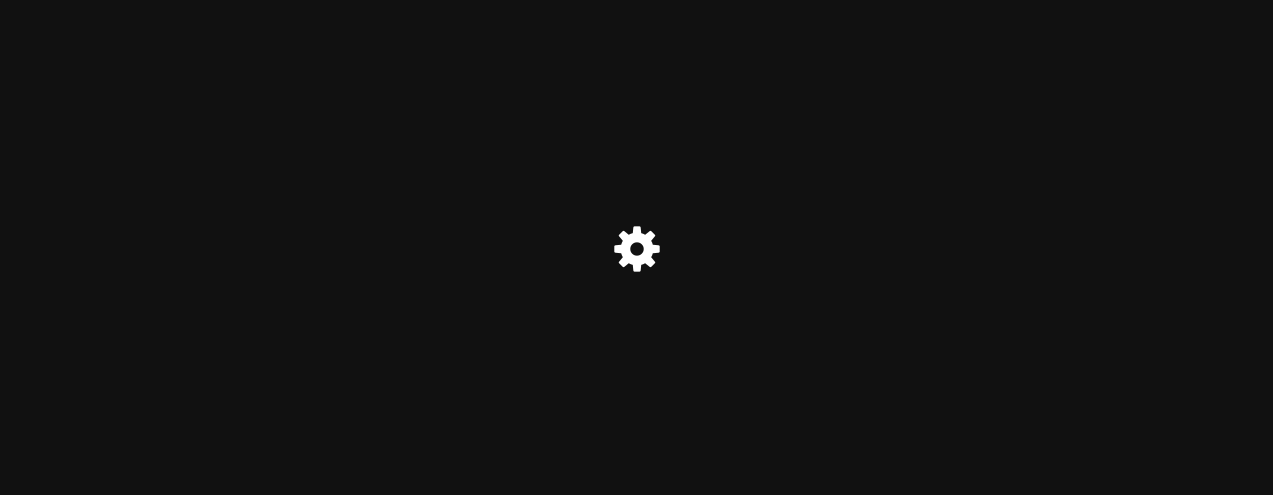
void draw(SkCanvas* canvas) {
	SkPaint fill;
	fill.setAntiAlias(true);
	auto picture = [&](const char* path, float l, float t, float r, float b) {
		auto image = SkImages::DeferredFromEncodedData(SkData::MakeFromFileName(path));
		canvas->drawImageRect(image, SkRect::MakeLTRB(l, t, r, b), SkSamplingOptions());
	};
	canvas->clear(0xFF111111);
	picture("image0.png", 614, 226, 660, 272);
}
